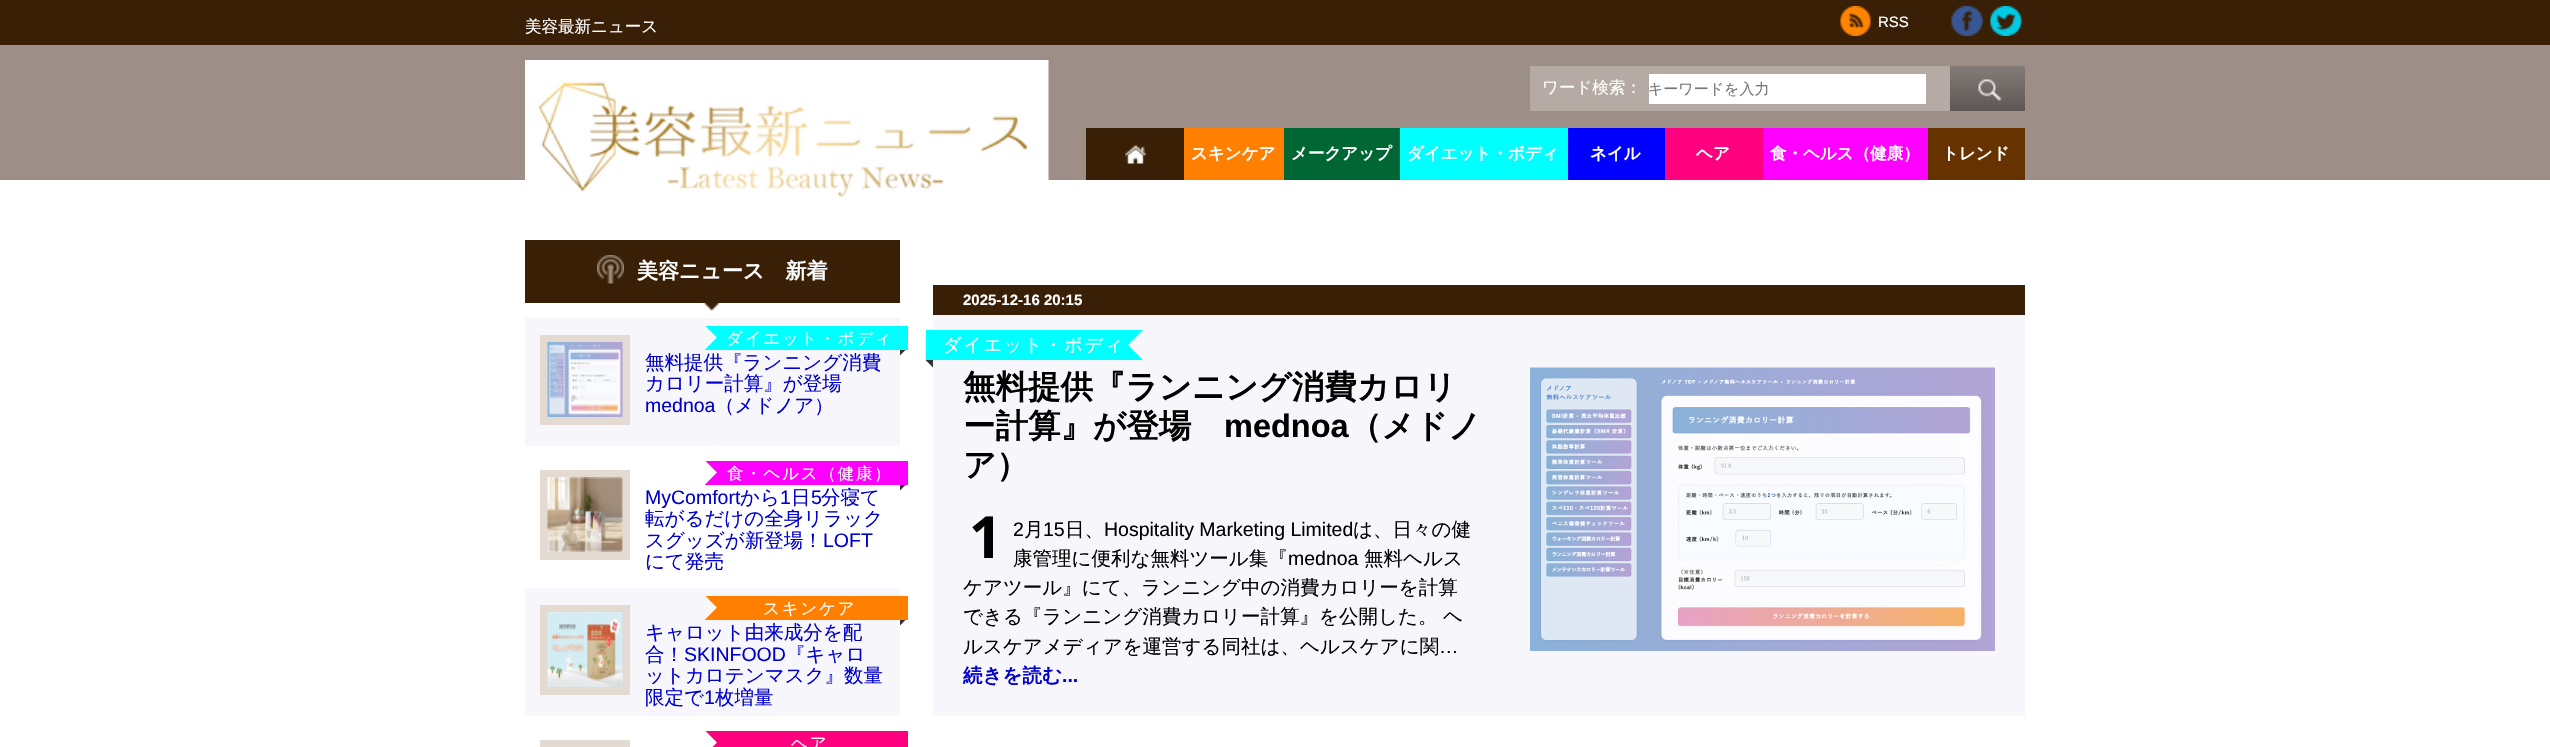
void draw(SkCanvas* canvas) {
	SkPaint fill;
	fill.setAntiAlias(true);
	auto makeFont = [&](const char* family, int weight, float size, bool italic = false) {
		SkFontStyle style(weight, SkFontStyle::kNormal_Width,
			italic ? SkFontStyle::kItalic_Slant : SkFontStyle::kUpright_Slant);
		SkFont result(fontMgr->matchFamilyStyle(family, style), size);
		result.setSubpixel(true);
		return result;
	};
	auto text = [&](const char* s, float x, float y, const SkFont& font) {
		canvas->drawString(s, x, y, font, fill);
	};
	auto spacedText = [&](const char* s, float x, float y, const SkFont& font, const SkPaint& ink, float letter, float word) {
		std::vector<SkGlyphID> glyphs(font.countText(s, strlen(s), SkTextEncoding::kUTF8));
		std::vector<float> xs(glyphs.size());
		font.textToGlyphs(s, strlen(s), SkTextEncoding::kUTF8, glyphs);
		font.getXPos(glyphs, xs, x);
		float extra = 0;
		for (size_t i = 0; i < glyphs.size(); i++) {
			xs[i] += extra;
			extra += letter + word * (glyphs[i] == font.unicharToGlyph(' '));
		}
		canvas->drawTextBlob(SkTextBlob::MakeFromPosHGlyphs(glyphs, xs, y, font), 0, 0, ink);
	};
	auto box = [&](float l, float t, float r, float b) {
		canvas->drawRect(SkRect::MakeLTRB(l, t, r, b), fill);
	};
	auto picture = [&](const char* path, float l, float t, float r, float b) {
		auto image = SkImages::DeferredFromEncodedData(SkData::MakeFromFileName(path));
		canvas->drawImageRect(image, SkRect::MakeLTRB(l, t, r, b), SkSamplingOptions());
	};
	canvas->clear(0xFFFFFFFF);
	fill.setColor(0xFF391F05);
	box(0, 0, 2550, 45);
	picture("image0.png", 1840, 6, 1871, 36);
	picture("image1.png", 1951, 6, 1983, 36);
	picture("image2.png", 1989, 6, 2022, 36);
	fill.setColor(0xFF9D8E87);
	box(0, 45, 2550, 180);
	picture("image3.png", 525, 60, 1049, 197);
	fill.setColor(0xFFB6AAA5);
	box(1530, 66, 2025, 111);
	fill.setColor(0xFFFFFFFF);
	box(1649, 74, 1926, 104);
	picture("image4.png", 1950, 66, 2025, 111);
	fill.setColor(0xFF391F05);
	box(1086, 128, 1184, 180);
	picture("image5.png", 1125, 145, 1146, 164);
	fill.setColor(0xFFFF7F00);
	box(1184, 128, 1284, 180);
	fill.setColor(0xFF006633);
	box(1284, 128, 1400, 180);
	fill.setColor(0xFF00FFFF);
	box(1400, 128, 1568, 180);
	fill.setColor(0xFF0000FF);
	box(1568, 128, 1665, 180);
	fill.setColor(0xFFFF007F);
	box(1665, 128, 1763, 180);
	fill.setColor(0xFFFF00FF);
	box(1763, 128, 1928, 180);
	fill.setColor(0xFF663300);
	box(1928, 128, 2025, 180);
	fill.setColor(0xFF391F05);
	box(525, 240, 900, 303);
	picture("image6.png", 597, 255, 624, 284);
	picture("image7.png", 703, 303, 720, 311);
	fill.setColor(0xFF333333);
	canvas->drawPath(SkPathBuilder().moveTo(892.5f, 363).lineTo(892.5f, 333).lineTo(907.5f, 348).close().detach(), fill);
	fill.setColor(0xFFF7F6FB);
	box(525, 318, 900, 446);
	fill.setColor(0xFF00FFFF);
	box(705, 326, 908, 350);
	fill.setColor(0xFFF7F6FB);
	canvas->drawPath(SkPathBuilder().moveTo(705, 349.5f).lineTo(705, 325.5f).lineTo(717, 337.5f).close().detach(), fill);
	fill.setStyle(SkPaint::kStroke_Style);
	fill.setStrokeWidth(8);
	fill.setColor(0xFFE3DBD1);
	canvas->drawRect(SkRect::MakeLTRB(544, 339, 626, 421), fill);
	picture("image8.png", 547, 342, 623, 417);
	fill.setStyle(SkPaint::kFill_Style);
	fill.setColor(0xFF333333);
	canvas->drawPath(SkPathBuilder().moveTo(892.5f, 498).lineTo(892.5f, 468).lineTo(907.5f, 483).close().detach(), fill);
	fill.setColor(0xFFFFFFFF);
	box(892, 468, 900, 498);
	fill.setColor(0xFFFF00FF);
	box(705, 461, 908, 485);
	fill.setColor(0xFFFFFFFF);
	canvas->drawPath(SkPathBuilder().moveTo(705, 484.5f).lineTo(705, 460.5f).lineTo(717, 472.5f).close().detach(), fill);
	fill.setStyle(SkPaint::kStroke_Style);
	fill.setColor(0xFFE3DBD1);
	canvas->drawRect(SkRect::MakeLTRB(544, 474, 626, 556), fill);
	picture("image9.png", 547, 477, 623, 552);
	fill.setStyle(SkPaint::kFill_Style);
	fill.setColor(0xFF333333);
	canvas->drawPath(SkPathBuilder().moveTo(892.5f, 633).lineTo(892.5f, 603).lineTo(907.5f, 618).close().detach(), fill);
	fill.setColor(0xFFF7F6FB);
	box(525, 588, 900, 716);
	fill.setColor(0xFFFF7F00);
	box(705, 596, 908, 620);
	fill.setColor(0xFFF7F6FB);
	canvas->drawPath(SkPathBuilder().moveTo(705, 619.5f).lineTo(705, 595.5f).lineTo(717, 607.5f).close().detach(), fill);
	fill.setStyle(SkPaint::kStroke_Style);
	fill.setColor(0xFFE3DBD1);
	canvas->drawRect(SkRect::MakeLTRB(544, 609, 626, 691), fill);
	picture("image10.png", 547, 612, 623, 687);
	canvas->drawRect(SkRect::MakeLTRB(544, 744, 626, 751), fill);
	fill.setStyle(SkPaint::kFill_Style);
	fill.setColor(0xFFFF007F);
	box(705, 731, 908, 747);
	fill.setColor(0xFFFFFFFF);
	canvas->drawPath(SkPathBuilder().moveTo(705, 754.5f).lineTo(705, 730.5f).lineTo(717, 742.5f).close().detach(), fill);
	fill.setColor(0xFF333333);
	canvas->drawPath(SkPathBuilder().moveTo(940.5f, 345).lineTo(940.5f, 375).lineTo(925.5f, 360).close().detach(), fill);
	fill.setColor(0xFFF7F6FB);
	box(933, 315, 2025, 716);
	fill.setColor(0xFF391F05);
	box(933, 285, 2025, 315);
	fill.setColor(0xFF00FFFF);
	box(926, 330, 1143, 360);
	fill.setColor(0xFFF7F6FB);
	canvas->drawPath(SkPathBuilder().moveTo(1143, 330).lineTo(1143, 360).lineTo(1128, 345).close().detach(), fill);
	picture("image11.png", 1530, 367, 1995, 651);
	auto font1 = makeFont("WenQuanYi Zen Hei", 500, 16.5f);
	fill.setColor(0xFFFFFFFF);
	text("美容最新ニュース", 525, 32, font1);
	auto font2 = makeFont("Liberation Sans", 400, 15);
	text("RSS", 1878, 27, font2);
	text("ワード検索：", 1542, 93, font1);
	auto font3 = makeFont("WenQuanYi Zen Hei", 500, 15);
	fill.setColor(0xFF757575);
	text("キーワードを入力", 1648, 94, font3);
	auto font4 = makeFont("WenQuanYi Zen Hei", 700, 16.5f);
	fill.setColor(0xFFFFFFFF);
	text("スキンケア", 1191, 159, font4);
	text("メークアップ", 1291, 159, font4);
	text("ダイエット・ボディ", 1407, 159, font4);
	text("ネイル", 1590, 159, font4);
	text("ヘア", 1696, 159, font4);
	text("食・ヘルス（健康）", 1770, 159, font4);
	text("トレンド", 1942, 159, font4);
	auto font5 = makeFont("WenQuanYi Zen Hei", 700, 21);
	text("美容ニュース　新着", 637, 278, font5);
	spacedText("ダイエット・ボディ", 726, 344, font1, fill, 1.75f, 0);
	auto font6 = makeFont("WenQuanYi Zen Hei", 500, 19.5f);
	fill.setColor(0xFF0000CD);
	text("無料提供『ランニング消費", 645, 369, font6);
	text("カロリー計算』が登場", 645, 390, font6);
	auto font7 = makeFont("Liberation Sans", 400, 19.5f);
	text("mednoa", 645, 412, font7);
	text("（メドノア）", 715, 412, font6);
	fill.setColor(0xFFFFFFFF);
	spacedText("食・ヘルス（健康）", 727, 479, font1, fill, 1.75f, 0);
	fill.setColor(0xFF0000CD);
	text("MyComfort", 645, 504, font7);
	text("から", 740, 504, font6);
	text("1", 780, 504, font7);
	text("日", 791, 504, font6);
	text("5", 811, 504, font7);
	text("分寝て", 821, 504, font6);
	text("転がるだけの全身リラック", 645, 525, font6);
	text("スグッズが新登場！", 645, 547, font6);
	text("LOFT", 823, 547, font7);
	text("にて発売", 645, 568, font6);
	fill.setColor(0xFFFFFFFF);
	spacedText("スキンケア", 763, 614, font1, fill, 1.75f, 0);
	fill.setColor(0xFF0000CD);
	text("キャロット由来成分を配", 645, 639, font6);
	text("合！", 645, 661, font6);
	text("SKINFOOD", 684, 661, font7);
	text("『キャロ", 786, 661, font6);
	text("ットカロテンマスク』数量", 645, 682, font6);
	text("限定で", 645, 704, font6);
	text("1", 704, 704, font7);
	text("枚増量", 715, 704, font6);
	fill.setColor(0xFFFFFFFF);
	spacedText("ヘア", 791, 749, font1, fill, 1.75f, 0);
	auto font8 = makeFont("Liberation Sans", 700, 15);
	text("2025-12-16 20:15", 963, 305, font8);
	auto font9 = makeFont("WenQuanYi Zen Hei", 500, 18.1f);
	spacedText("ダイエット・ボディ", 943, 351, font9, fill, 1.75f, 0);
	auto font10 = makeFont("WenQuanYi Zen Hei", 700, 32.5f);
	fill.setColor(0xFF000000);
	text("無料提供『ランニング消費カロリ", 963, 398, font10);
	text("ー計算』が登場", 963, 437, font10);
	auto font11 = makeFont("Liberation Sans", 700, 32.5f);
	text("mednoa", 1224, 437, font11);
	text("（メドノ", 1349, 437, font10);
	text("ア）", 963, 476, font10);
	auto font12 = makeFont("Noto Sans", 700, 58);
	text("1", 969, 558, font12);
	text("2", 1013, 536, font7);
	text("月", 1024, 536, font6);
	text("15", 1043, 536, font7);
	text("日、", 1065, 536, font6);
	text("Hospitality Marketing Limited", 1104, 536, font7);
	text("は、日々の健", 1353, 536, font6);
	text("康管理に便利な無料ツール集『", 1013, 565, font6);
	text("mednoa", 1288, 565, font7);
	text("無料ヘルス", 1364, 565, font6);
	text("ケアツール』にて、ランニング中の消費カロリーを計算", 963, 594, font6);
	text("できる『ランニング消費カロリー計算』を公開した。", 963, 623, font6);
	text("ヘ", 1443, 623, font6);
	text("ルスケアメディアを運営する同社は、ヘルスケアに関", 963, 653, font6);
	text("…", 1439, 653, font7);
	auto font13 = makeFont("WenQuanYi Zen Hei", 700, 19.5f);
	fill.setColor(0xFF0000CD);
	text("続きを読む", 963, 682, font13);
	auto font14 = makeFont("Liberation Sans", 700, 19.5f);
	text("...", 1062, 682, font14);
}
